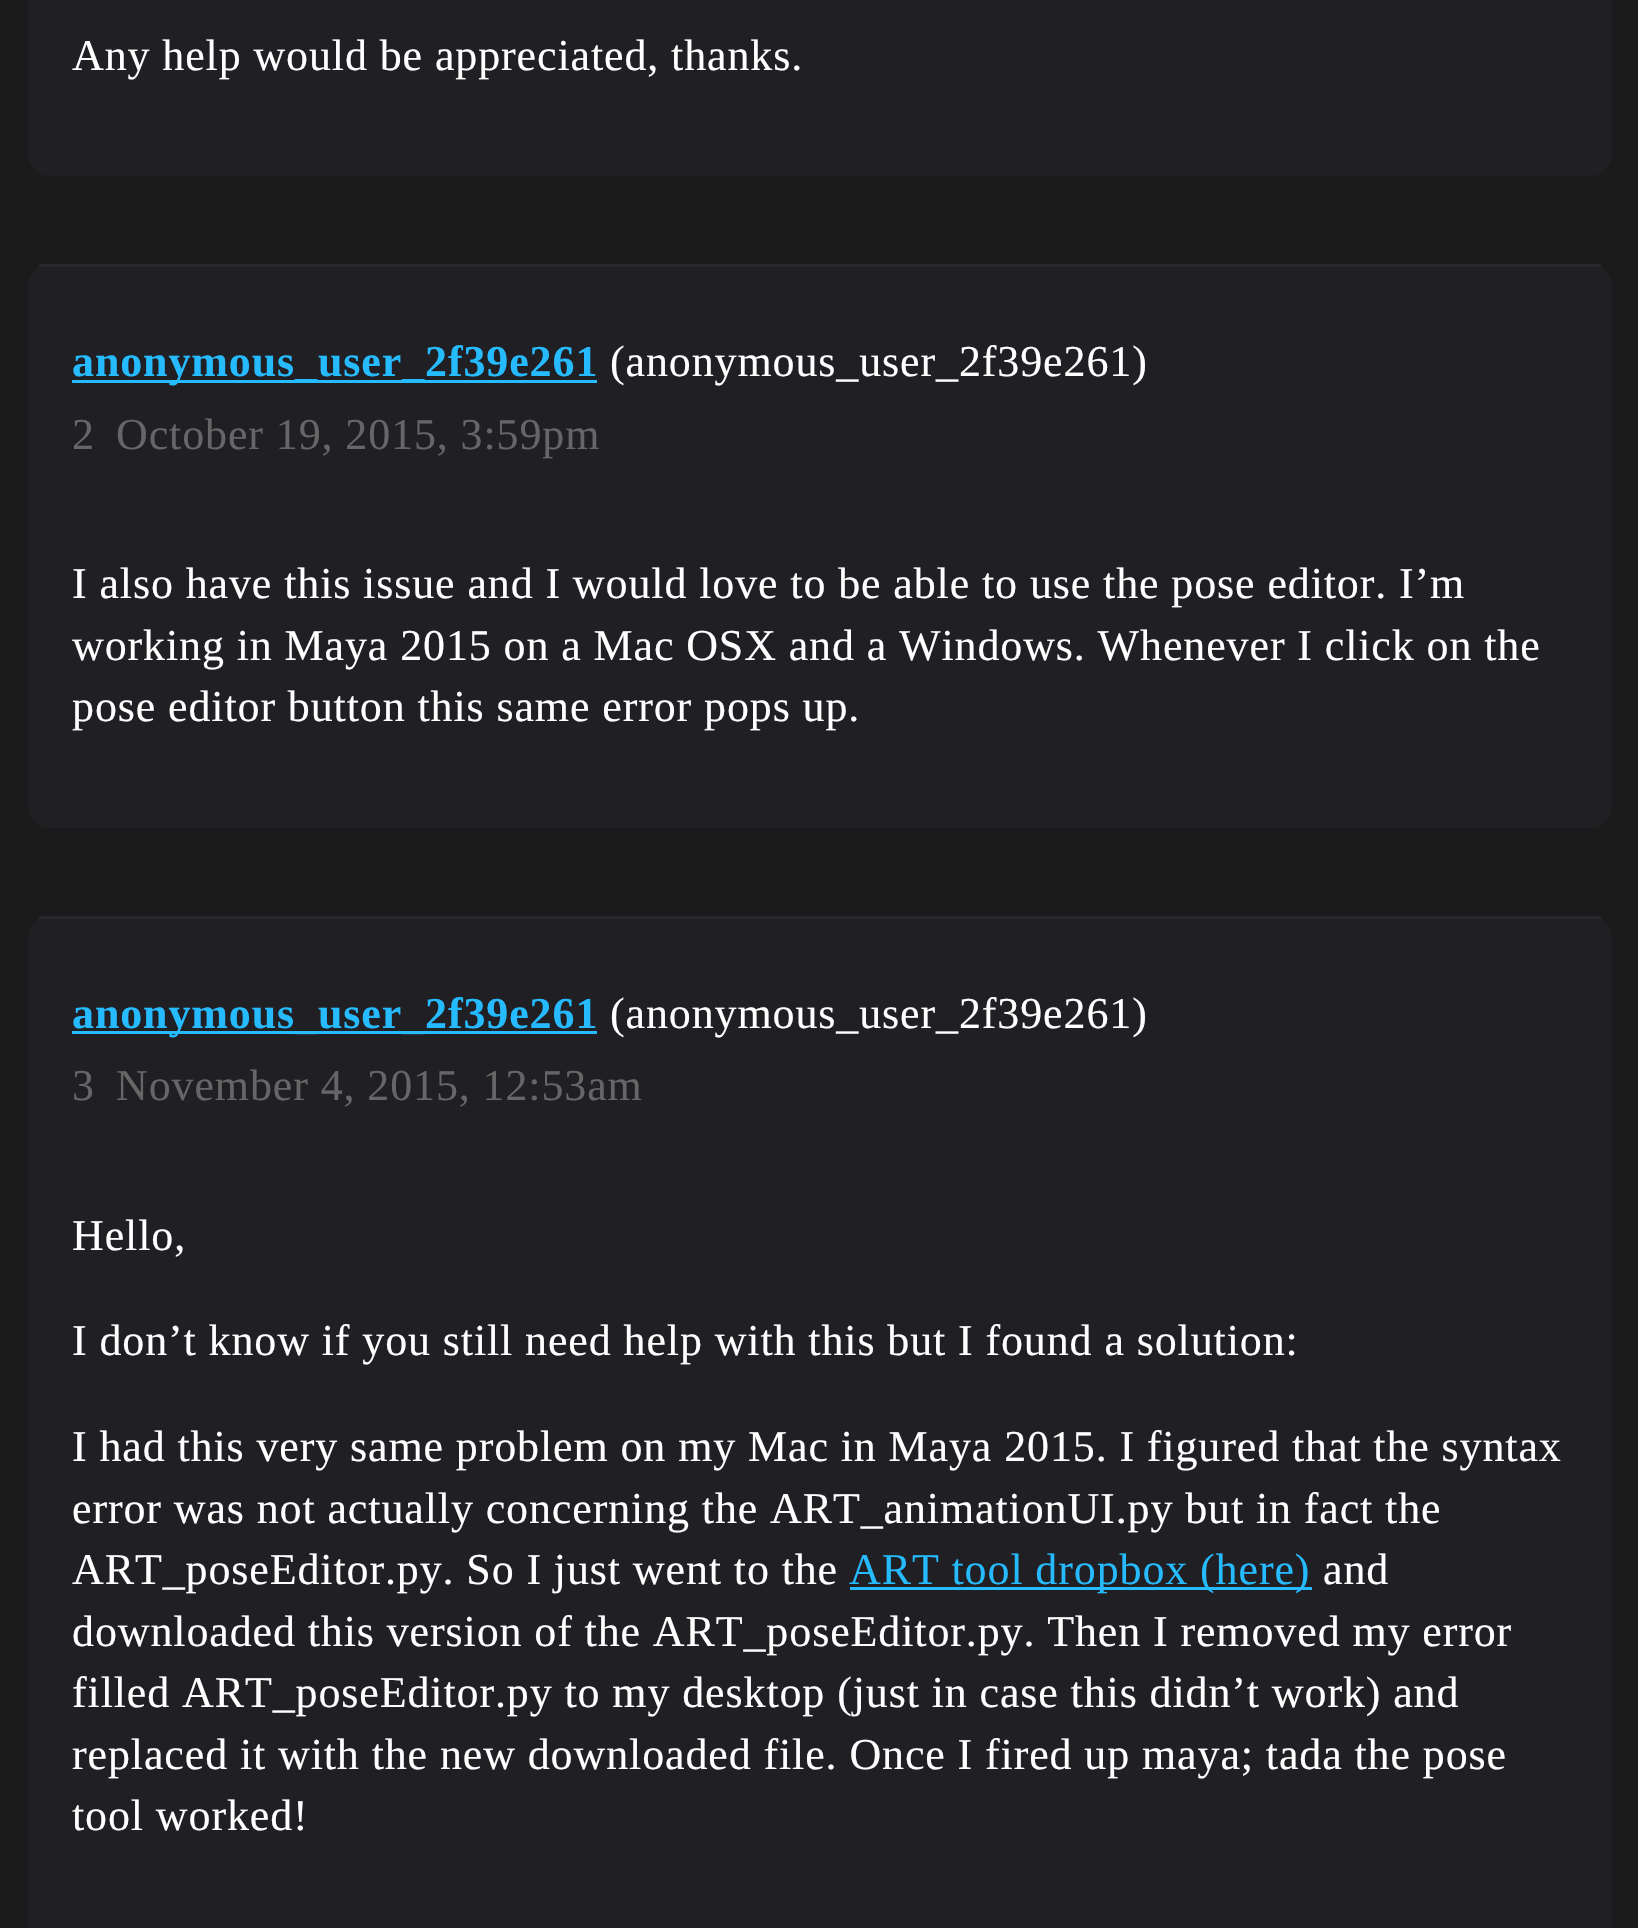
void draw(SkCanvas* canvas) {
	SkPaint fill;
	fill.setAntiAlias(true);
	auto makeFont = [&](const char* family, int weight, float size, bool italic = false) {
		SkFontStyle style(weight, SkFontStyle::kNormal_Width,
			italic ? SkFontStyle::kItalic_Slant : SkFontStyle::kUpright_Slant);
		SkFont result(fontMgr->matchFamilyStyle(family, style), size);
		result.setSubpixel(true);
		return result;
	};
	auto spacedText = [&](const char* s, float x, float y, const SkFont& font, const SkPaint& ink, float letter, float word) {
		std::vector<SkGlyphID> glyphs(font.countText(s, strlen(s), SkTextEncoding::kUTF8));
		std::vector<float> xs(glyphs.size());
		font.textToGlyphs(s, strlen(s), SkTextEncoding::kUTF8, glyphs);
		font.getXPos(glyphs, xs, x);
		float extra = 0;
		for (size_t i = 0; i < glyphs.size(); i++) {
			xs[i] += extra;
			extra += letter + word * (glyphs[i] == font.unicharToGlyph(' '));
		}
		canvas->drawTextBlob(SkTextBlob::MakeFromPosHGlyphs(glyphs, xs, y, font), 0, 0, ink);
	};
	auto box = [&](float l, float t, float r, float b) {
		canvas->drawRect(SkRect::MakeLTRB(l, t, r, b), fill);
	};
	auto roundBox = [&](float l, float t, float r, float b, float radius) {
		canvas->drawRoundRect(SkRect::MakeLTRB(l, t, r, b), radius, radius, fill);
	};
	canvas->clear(0xFF1B1B1B);
	fill.setColor(0xFF202024);
	roundBox(28, -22, 1612, 176, 22);
	roundBox(28, 264, 1612, 828, 22);
	fill.setColor(0xFF28282C);
	box(39, 264, 1601, 267);
	fill.setColor(0xFF26BBFF);
	box(72, 380, 597, 383);
	fill.setColor(0xFF202024);
	roundBox(28, 916, 1612, 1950, 22);
	fill.setColor(0xFF28282C);
	box(39, 916, 1601, 919);
	fill.setColor(0xFF26BBFF);
	box(72, 1031, 597, 1034);
	box(850, 1587, 1312, 1590);
	auto font1 = makeFont("Liberation Serif", 400, 44);
	fill.setColor(0xFFFFFFFF);
	spacedText("Any help would be appreciated, thanks.", 72, 70, font1, fill, 0.88f, 0);
	auto font2 = makeFont("Liberation Serif", 700, 44);
	fill.setColor(0xFF26BBFF);
	spacedText("anonymous_user_2f39e261", 72, 376, font2, fill, 0.88f, 0);
	fill.setColor(0xFFFFFFFF);
	spacedText("(anonymous_user_2f39e261)", 610, 376, font1, fill, 0.88f, 0);
	fill.setColor(0xFF666666);
	spacedText("2", 72, 449, font1, fill, 0.88f, 0);
	spacedText("October 19, 2015, 3:59pm", 116, 449, font1, fill, 0.88f, 0);
	fill.setColor(0xFFFFFFFF);
	spacedText("I also have this issue and I would love to be able to use the pose editor. I’m", 72, 598, font1, fill, 0.88f, 0);
	spacedText("working in Maya 2015 on a Mac OSX and a Windows. Whenever I click on the", 72, 660, font1, fill, 0.88f, 0);
	spacedText("pose editor button this same error pops up.", 72, 721, font1, fill, 0.88f, 0);
	fill.setColor(0xFF26BBFF);
	spacedText("anonymous_user_2f39e261", 72, 1028, font2, fill, 0.88f, 0);
	fill.setColor(0xFFFFFFFF);
	spacedText("(anonymous_user_2f39e261)", 610, 1028, font1, fill, 0.88f, 0);
	fill.setColor(0xFF666666);
	spacedText("3", 72, 1100, font1, fill, 0.88f, 0);
	spacedText("November 4, 2015, 12:53am", 116, 1100, font1, fill, 0.88f, 0);
	fill.setColor(0xFFFFFFFF);
	spacedText("Hello,", 72, 1250, font1, fill, 0.88f, 0);
	spacedText("I don’t know if you still need help with this but I found a solution:", 72, 1355, font1, fill, 0.88f, 0);
	spacedText("I had this very same problem on my Mac in Maya 2015. I figured that the syntax", 72, 1461, font1, fill, 0.88f, 0);
	spacedText("error was not actually concerning the ART_animationUI.py but in fact the", 72, 1523, font1, fill, 0.88f, 0);
	spacedText("ART_poseEditor.py. So I just went to the", 72, 1584, font1, fill, 0.88f, 0);
	fill.setColor(0xFF26BBFF);
	spacedText("ART tool dropbox (here)", 849, 1584, font1, fill, 0.88f, 0);
	fill.setColor(0xFFFFFFFF);
	spacedText("and", 1323, 1584, font1, fill, 0.88f, 0);
	spacedText("downloaded this version of the ART_poseEditor.py. Then I removed my error", 72, 1646, font1, fill, 0.88f, 0);
	spacedText("filled ART_poseEditor.py to my desktop (just in case this didn’t work) and", 72, 1707, font1, fill, 0.88f, 0);
	spacedText("replaced it with the new downloaded file. Once I fired up maya; tada the pose", 72, 1769, font1, fill, 0.88f, 0);
	spacedText("tool worked!", 72, 1830, font1, fill, 0.88f, 0);
}
